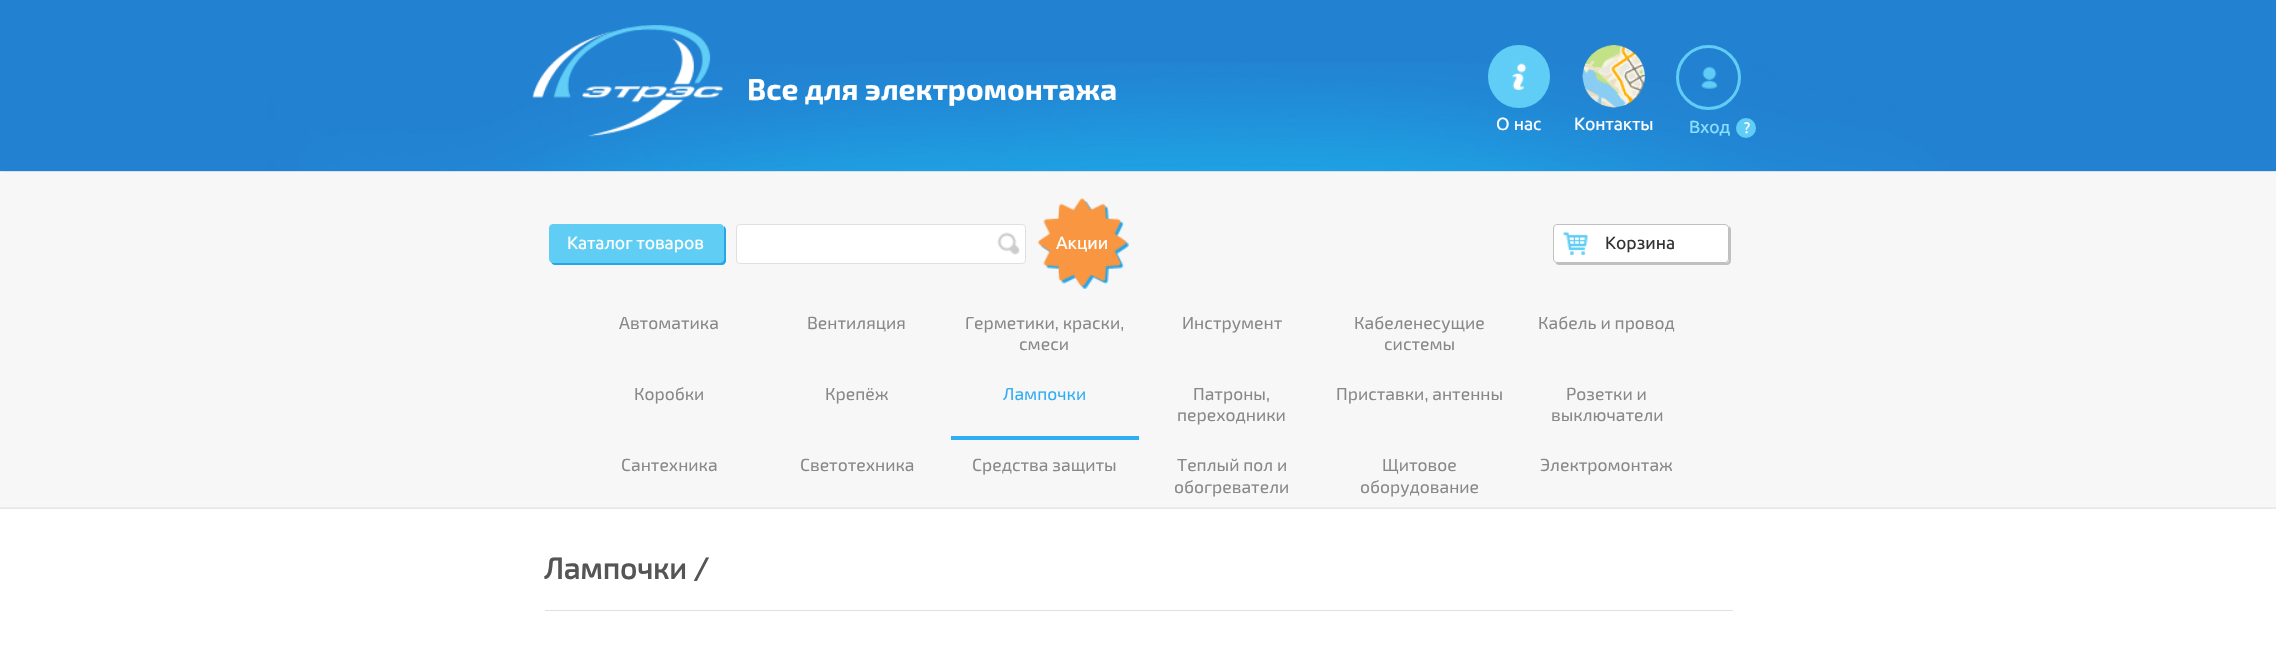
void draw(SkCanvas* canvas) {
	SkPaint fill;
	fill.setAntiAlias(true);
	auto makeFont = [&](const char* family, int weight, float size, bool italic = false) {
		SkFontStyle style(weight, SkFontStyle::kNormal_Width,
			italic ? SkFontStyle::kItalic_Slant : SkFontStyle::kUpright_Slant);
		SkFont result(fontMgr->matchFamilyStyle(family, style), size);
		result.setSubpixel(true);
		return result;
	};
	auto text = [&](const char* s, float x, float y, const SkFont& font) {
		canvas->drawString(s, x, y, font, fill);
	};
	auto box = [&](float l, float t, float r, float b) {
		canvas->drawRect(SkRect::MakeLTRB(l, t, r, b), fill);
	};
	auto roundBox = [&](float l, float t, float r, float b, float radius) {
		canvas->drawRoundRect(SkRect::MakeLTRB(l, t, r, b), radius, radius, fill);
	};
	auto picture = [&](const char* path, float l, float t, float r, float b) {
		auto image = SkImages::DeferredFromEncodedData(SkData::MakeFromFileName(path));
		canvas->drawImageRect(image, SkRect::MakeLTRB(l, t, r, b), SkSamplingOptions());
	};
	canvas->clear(0xFFFFFFFF);
	fill.setColor(0xCC000000);
	fill.setMaskFilter(SkMaskFilter::MakeBlur(kNormal_SkBlurStyle, 2.5f));
	canvas->drawRect(SkRect::MakeLTRB(0, 0, 2276, 171), fill);
	fill.setMaskFilter(nullptr);
	fill.setColor(0xFF2281D1);
	box(0, 0, 2276, 63);
	picture("image0.png", 0, 63, 2276, 172);
	picture("image1.png", 532, 25, 723, 137);
	fill.setColor(0xFF5FCDF6);
	roundBox(1488, 45, 1550, 108, 31);
	picture("image2.png", 1512, 63, 1527, 90);
	picture("image3.png", 1582, 45, 1646, 108);
	picture("image4.png", 1701, 66, 1718, 89);
	fill.setStyle(SkPaint::kStroke_Style);
	fill.setStrokeWidth(3);
	fill.setColor(0xFF60CDF6);
	canvas->drawCircle(1708.5f, 77.5f, 31, fill);
	fill.setStyle(SkPaint::kFill_Style);
	canvas->drawCircle(1746, 128, 10, fill);
	picture("image5.png", 0, 171, 2276, 509);
	fill.setColor(0xFF26A5E8);
	canvas->drawPath(SkPathBuilder().moveTo(551, 262).cubicTo(552, 264, 553, 265, 555, 265).lineTo(722, 265).cubicTo(724, 265, 726, 263, 726, 261).lineTo(726, 230).cubicTo(726, 228, 725, 227, 724, 226).lineTo(724, 254).cubicTo(724, 256, 725, 262, 720, 262).close().detach(), fill);
	fill.setColor(0xFF60CDF4);
	canvas->drawRoundRect(SkRect::MakeLTRB(549.5f, 224.5f, 723.5f, 262.5f), 3.5f, 3.5f, fill);
	fill.setStyle(SkPaint::kStroke_Style);
	fill.setStrokeWidth(1);
	canvas->drawRoundRect(SkRect::MakeLTRB(549.5f, 224.5f, 723.5f, 262.5f), 3.5f, 3.5f, fill);
	fill.setStyle(SkPaint::kFill_Style);
	fill.setColor(0xFFFFFFFF);
	canvas->drawRoundRect(SkRect::MakeLTRB(736.5f, 224.5f, 1025.5f, 263.5f), 3.5f, 3.5f, fill);
	fill.setStyle(SkPaint::kStroke_Style);
	fill.setColor(0xFFE0E0E0);
	canvas->drawRoundRect(SkRect::MakeLTRB(736.5f, 224.5f, 1025.5f, 263.5f), 3.5f, 3.5f, fill);
	picture("image6.png", 997, 232, 1020, 255);
	picture("image7.png", 1037, 198, 1129, 289);
	fill.setStyle(SkPaint::kFill_Style);
	fill.setColor(0xFFC0C0C0);
	canvas->drawPath(SkPathBuilder().moveTo(1555, 262).cubicTo(1556, 264, 1557, 265, 1559, 265).lineTo(1727, 265).cubicTo(1729, 265, 1731, 263, 1731, 261).lineTo(1731, 230).cubicTo(1731, 228, 1730, 227, 1729, 226).lineTo(1729, 254).cubicTo(1729, 256, 1730, 262, 1725, 262).close().detach(), fill);
	fill.setColor(0xFFFFFFFF);
	roundBox(1553, 224, 1729, 263, 4);
	picture("image8.png", 1562, 232, 1588, 255);
	fill.setStyle(SkPaint::kStroke_Style);
	fill.setColor(0xFFC0C0C0);
	canvas->drawRoundRect(SkRect::MakeLTRB(1553.5f, 224.5f, 1728.5f, 262.5f), 3.5f, 3.5f, fill);
	fill.setStyle(SkPaint::kFill_Style);
	fill.setColor(0xFF31ADF3);
	box(951, 436, 1139, 440);
	fill.setColor(0xFFE0E0E0);
	box(545, 610, 1733, 611);
	auto font1 = makeFont("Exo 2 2", 700, 30);
	fill.setColor(0xFFFFFFFF);
	text("Все для электромонтажа", 747, 100, font1);
	auto font2 = makeFont("Ubuntu", 400, 17.5f);
	text("О нас", 1496, 130, font2);
	text("Контакты", 1574, 130, font2);
	fill.setColor(0xFF8BE0FF);
	text("Вход", 1689, 133, font2);
	auto font3 = makeFont("Ubuntu", 400, 15);
	fill.setColor(0xFFFFFFFF);
	text("?", 1744, 133, font3);
	text("Каталог товаров", 567, 249, font2);
	text("Акции", 1056, 249, font2);
	fill.setColor(0xFF333333);
	text("Корзина", 1605, 249, font2);
	auto font4 = makeFont("Exo 2", 400, 17.5f);
	fill.setColor(0xFF888888);
	text("Автоматика", 619, 329, font4);
	text("Вентиляция", 807, 329, font4);
	text("Герметики, краски,", 965, 329, font4);
	text("смеси", 1019, 350, font4);
	text("Инструмент", 1182, 329, font4);
	text("Кабеленесущие", 1354, 329, font4);
	text("системы", 1384, 350, font4);
	text("Кабель и провод", 1538, 329, font4);
	text("Коробки", 634, 400, font4);
	text("Крепёж", 825, 400, font4);
	fill.setColor(0xFF31ADF3);
	text("Лампочки", 1003, 400, font4);
	fill.setColor(0xFF888888);
	text("Патроны,", 1193, 400, font4);
	text("переходники", 1177, 421, font4);
	text("Приставки, антенны", 1336, 400, font4);
	text("Розетки и", 1566, 400, font4);
	text("выключатели", 1551, 421, font4);
	text("Сантехника", 621, 471, font4);
	text("Светотехника", 800, 471, font4);
	text("Средства защиты", 972, 471, font4);
	text("Теплый пол и", 1177, 471, font4);
	text("обогреватели", 1174, 493, font4);
	text("Щитовое", 1382, 471, font4);
	text("оборудование", 1360, 493, font4);
	text("Электромонтаж", 1540, 471, font4);
	auto font5 = makeFont("Exo 2", 700, 30);
	fill.setColor(0xFF555555);
	text("Лампочки /", 544, 579, font5);
}
